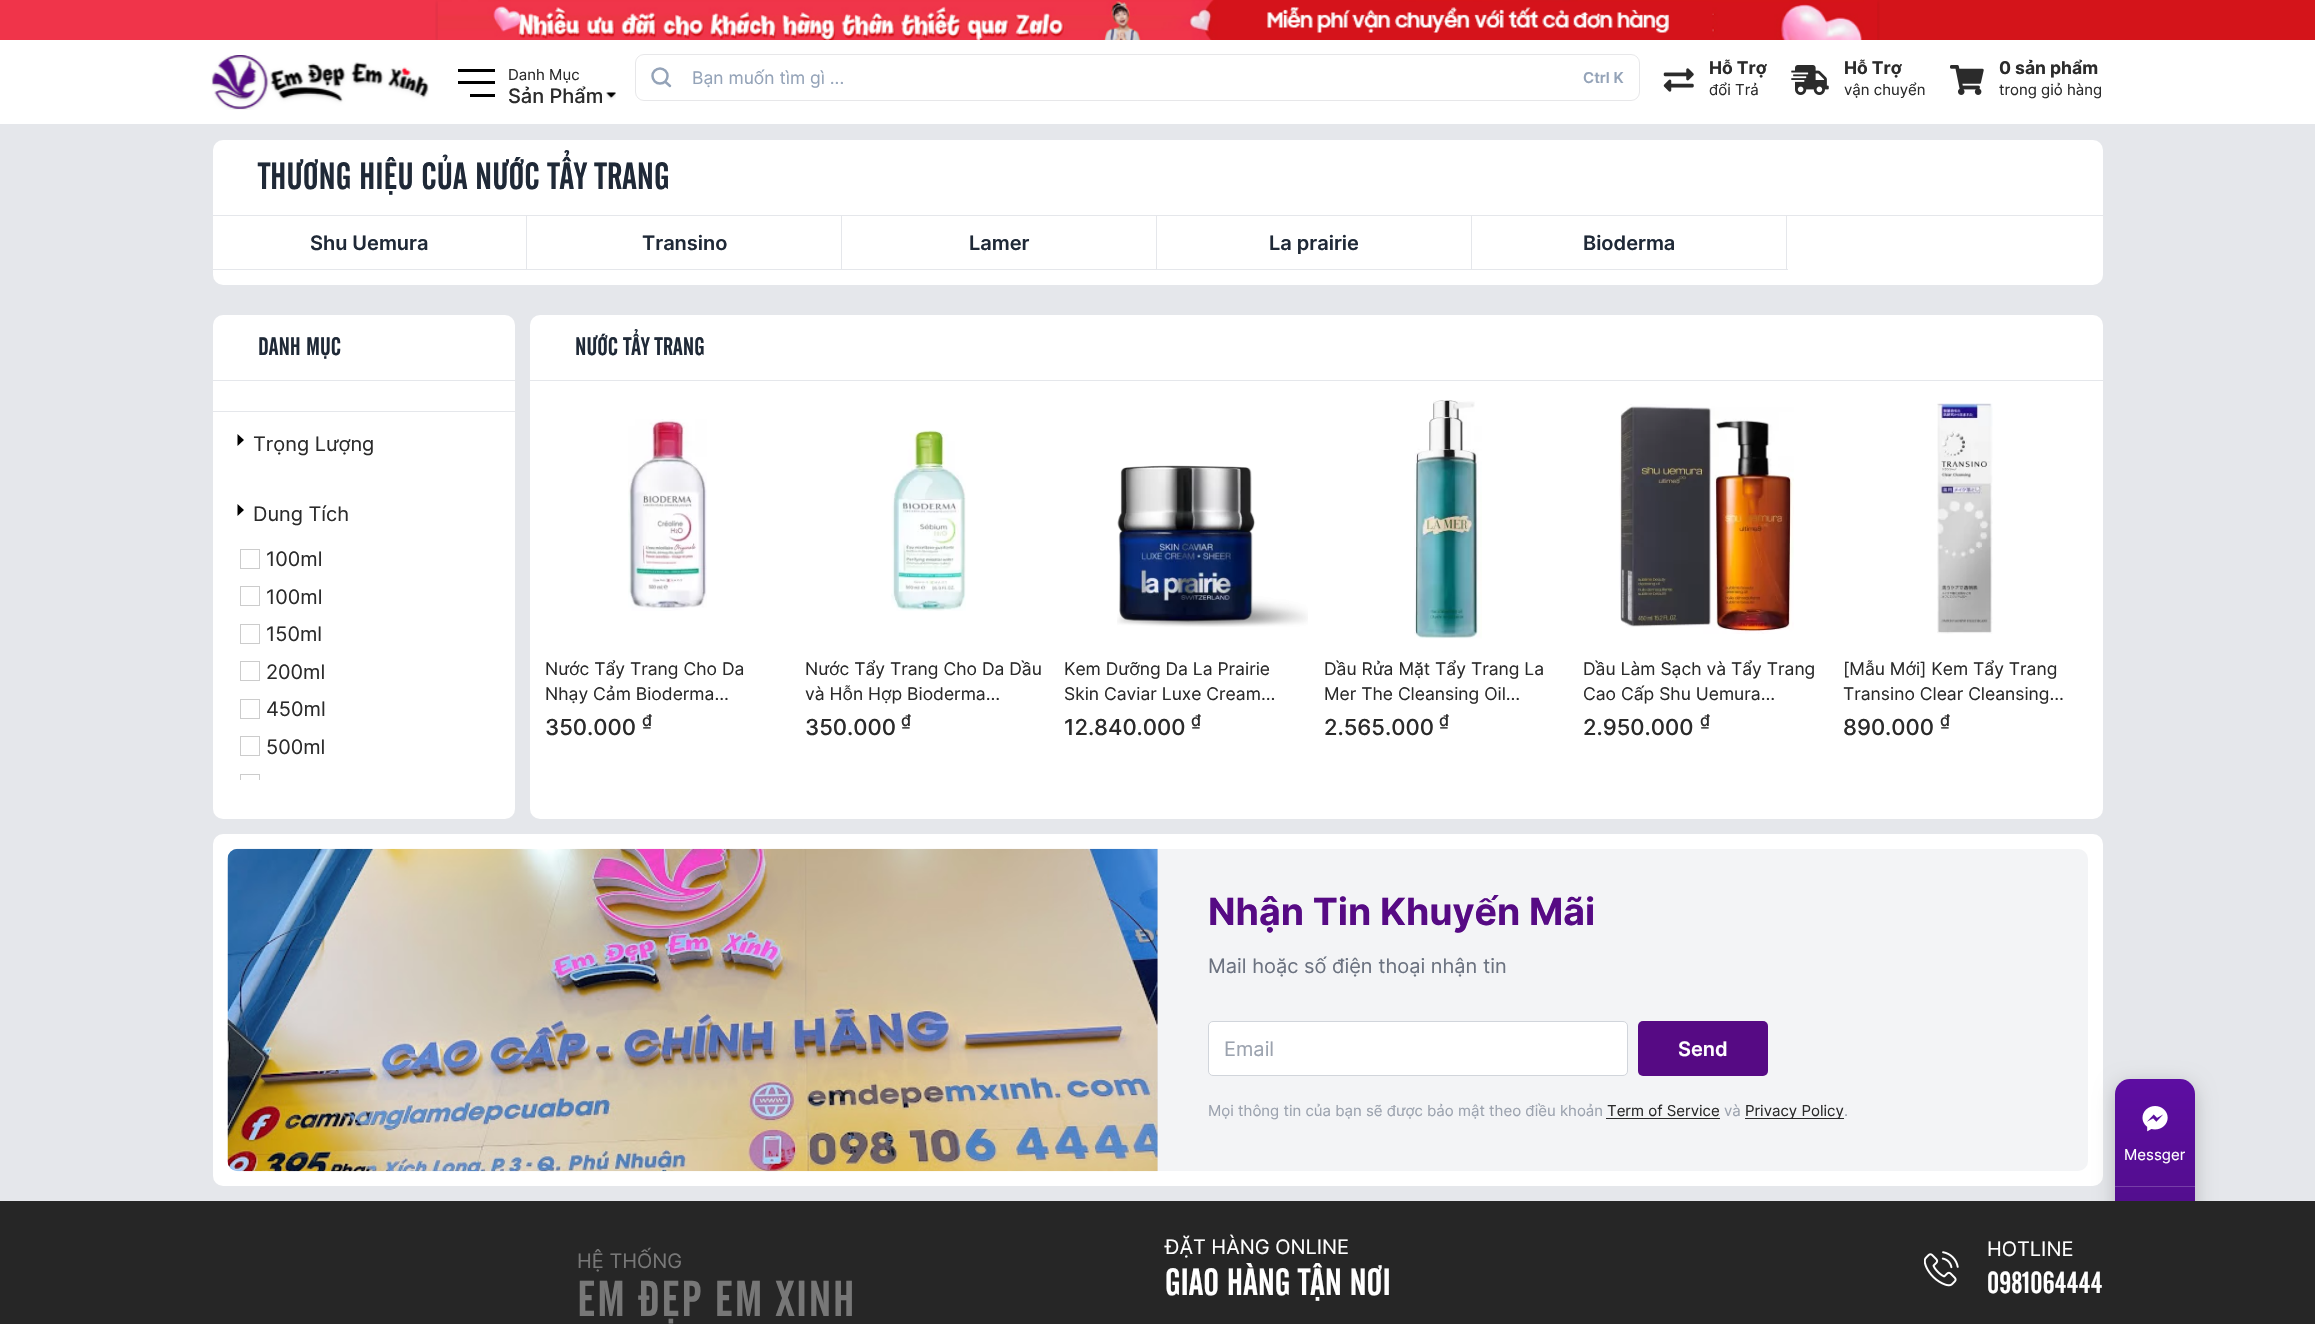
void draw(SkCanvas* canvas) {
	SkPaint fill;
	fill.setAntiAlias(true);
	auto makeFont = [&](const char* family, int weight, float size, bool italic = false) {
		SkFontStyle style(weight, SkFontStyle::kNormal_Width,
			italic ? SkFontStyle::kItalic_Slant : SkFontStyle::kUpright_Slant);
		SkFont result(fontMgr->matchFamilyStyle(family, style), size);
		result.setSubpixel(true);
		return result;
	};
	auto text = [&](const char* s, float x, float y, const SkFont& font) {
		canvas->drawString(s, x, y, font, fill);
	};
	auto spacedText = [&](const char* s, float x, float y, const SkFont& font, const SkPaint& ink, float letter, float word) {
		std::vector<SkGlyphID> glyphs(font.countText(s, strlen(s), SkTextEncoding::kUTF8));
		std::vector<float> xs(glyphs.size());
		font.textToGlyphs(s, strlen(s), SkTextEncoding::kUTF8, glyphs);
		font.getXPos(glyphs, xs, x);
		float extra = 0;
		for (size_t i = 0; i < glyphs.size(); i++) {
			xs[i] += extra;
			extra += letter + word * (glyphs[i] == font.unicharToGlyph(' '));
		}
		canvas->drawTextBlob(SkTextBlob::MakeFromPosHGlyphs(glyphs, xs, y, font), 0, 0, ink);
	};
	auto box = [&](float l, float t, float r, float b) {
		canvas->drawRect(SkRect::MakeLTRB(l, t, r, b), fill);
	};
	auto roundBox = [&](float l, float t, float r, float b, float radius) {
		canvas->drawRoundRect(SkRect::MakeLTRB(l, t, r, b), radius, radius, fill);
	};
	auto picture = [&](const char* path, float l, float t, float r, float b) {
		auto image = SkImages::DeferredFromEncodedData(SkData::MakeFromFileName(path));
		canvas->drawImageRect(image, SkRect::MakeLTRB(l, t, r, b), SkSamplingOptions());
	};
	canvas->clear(0xFFE5E7EB);
	fill.setColor(0xFFF0344A);
	box(0, 0, 438, 40);
	fill.setColor(0xFFD4141A);
	box(1877, 0, 2315, 40);
	picture("image0.png", 435, 0, 1880, 40);
	fill.setColor(0xFFFFFFFF);
	box(0, 40, 2315, 124);
	picture("image1.png", 211, 55, 429, 110);
	fill.setColor(0xFF000000);
	box(458, 81, 495, 84);
	box(458, 69, 495, 72);
	box(470, 94, 495, 97);
	picture("image2.png", 606, 92, 616, 100);
	fill.setStyle(SkPaint::kStroke_Style);
	fill.setStrokeWidth(1);
	fill.setColor(0x1A0F172A);
	canvas->drawRoundRect(SkRect::MakeLTRB(635.5f, 54.5f, 1639.5f, 100.5f), 8.5f, 8.5f, fill);
	fill.setStrokeWidth(2.5f);
	fill.setStrokeCap(SkPaint::kRound_Cap);
	fill.setStrokeJoin(SkPaint::kRound_Join);
	fill.setColor(0xFF94A3B8);
	canvas->drawPath(SkPathBuilder().moveTo(670, 86).lineTo(665.5f, 82).detach(), fill);
	fill.setStrokeCap(SkPaint::kButt_Cap);
	fill.setStrokeJoin(SkPaint::kMiter_Join);
	canvas->drawCircle(660, 76, 7.5f, fill);
	picture("image3.png", 1663, 68, 1694, 92);
	picture("image4.png", 1791, 65, 1829, 95);
	picture("image5.png", 1950, 65, 1984, 95);
	fill.setStyle(SkPaint::kFill_Style);
	fill.setColor(0xFFFFFFFF);
	roundBox(213, 140, 2103, 285, 10);
	fill.setColor(0xFFE5E7EB);
	box(213, 215, 2103, 216);
	box(526, 216, 527, 270);
	box(213, 269, 528, 270);
	box(841, 216, 842, 270);
	box(528, 269, 843, 270);
	box(1156, 216, 1157, 270);
	box(843, 269, 1158, 270);
	box(1471, 216, 1472, 270);
	box(1158, 269, 1473, 270);
	box(1786, 216, 1787, 270);
	box(1473, 269, 1788, 270);
	fill.setColor(0xFFFFFFFF);
	roundBox(213, 315, 515, 819, 10);
	fill.setColor(0xFFE5E7EB);
	box(213, 380, 515, 381);
	box(213, 411, 515, 412);
	fill.setColor(0xFF000000);
	canvas->drawPath(SkPathBuilder().moveTo(237.5f, 434).lineTo(244, 440).lineTo(237.5f, 446).close().detach(), fill);
	canvas->drawPath(SkPathBuilder().moveTo(237.5f, 504).lineTo(244, 510).lineTo(237.5f, 516).close().detach(), fill);
	fill.setStyle(SkPaint::kStroke_Style);
	fill.setStrokeWidth(1);
	fill.setColor(0xFFCCCCCC);
	canvas->drawRect(SkRect::MakeLTRB(240.5f, 549.5f, 259.5f, 568.5f), fill);
	canvas->drawRect(SkRect::MakeLTRB(240.5f, 586.5f, 259.5f, 605.5f), fill);
	canvas->drawRect(SkRect::MakeLTRB(240.5f, 624.5f, 259.5f, 643.5f), fill);
	canvas->drawRect(SkRect::MakeLTRB(240.5f, 661.5f, 259.5f, 680.5f), fill);
	canvas->drawRect(SkRect::MakeLTRB(240.5f, 699.5f, 259.5f, 718.5f), fill);
	canvas->drawRect(SkRect::MakeLTRB(240.5f, 736.5f, 259.5f, 755.5f), fill);
	canvas->save();
	canvas->clipRect(SkRect::MakeLTRB(228, 530, 500, 780));
	canvas->drawRect(SkRect::MakeLTRB(240.5f, 774.5f, 259.5f, 793.5f), fill);
	canvas->restore();
	fill.setStyle(SkPaint::kFill_Style);
	fill.setColor(0xFFFFFFFF);
	roundBox(530, 315, 2103, 819, 10);
	fill.setColor(0xFFE5E7EB);
	box(530, 380, 2103, 381);
	picture("image6.png", 628, 419, 707, 611);
	picture("image7.png", 891, 430, 966, 611);
	picture("image8.png", 1117, 465, 1308, 627);
	picture("image9.png", 1414, 400, 1482, 639);
	picture("image10.png", 1619, 404, 1794, 634);
	picture("image11.png", 1937, 403, 1993, 634);
	fill.setColor(0xFFFFFFFF);
	roundBox(213, 834, 2103, 1186, 10);
	fill.setColor(0xFFF3F4F6);
	roundBox(228, 849, 2088, 1171, 10);
	fill.setColor(0xFFE5E7EB);
	canvas->drawPath(SkPathBuilder().moveTo(238, 849).lineTo(1158, 849).lineTo(1158, 1171).lineTo(238, 1171).cubicTo(232.5f, 1171, 228, 1166.5f, 228, 1161).lineTo(228, 859).cubicTo(228, 853.5f, 232.5f, 849, 238, 849).close().detach(), fill);
	picture("image12.png", 227, 848, 1158, 1172);
	fill.setColor(0xFFFFFFFF);
	canvas->drawRoundRect(SkRect::MakeLTRB(1208.5f, 1021.5f, 1627.5f, 1075.5f), 4.5f, 4.5f, fill);
	fill.setStyle(SkPaint::kStroke_Style);
	fill.setColor(0xFFD1D5DB);
	canvas->drawRoundRect(SkRect::MakeLTRB(1208.5f, 1021.5f, 1627.5f, 1075.5f), 4.5f, 4.5f, fill);
	fill.setStyle(SkPaint::kFill_Style);
	fill.setColor(0xFF560A84);
	roundBox(1638, 1021, 1768, 1076, 5);
	fill.setColor(0xFF2B2B2B);
	box(1606, 1118, 1720, 1119);
	box(1745, 1118, 1844, 1119);
	fill.setColor(0x33000000);
	fill.setMaskFilter(SkMaskFilter::MakeBlur(kNormal_SkBlurStyle, 10));
	canvas->drawRoundRect(SkRect::MakeLTRB(2115, 1084, 2195, 1300), 15, 15, fill);
	fill.setMaskFilter(nullptr);
	{
		const SkColor colors[] = {0xFF4B0E7F, 0xFF5D0DA2};
		const float stops[] = {0, 1};
		const SkPoint ends[] = {{2155, 1295}, {2155, 1079}};
		fill.setShader(SkGradientShader::MakeLinear(ends, colors, stops, 2, SkTileMode::kClamp));
		fill.setAlpha(255);
	}
	roundBox(2115, 1079, 2195, 1295, 15);
	picture("image13.png", 2142, 1106, 2168, 1132);
	fill.setShader(nullptr);
	fill.setColor(0xFF763DA7);
	box(2115, 1186, 2195, 1187);
	fill.setColor(0xFF262626);
	box(0, 1201, 2315, 1324);
	picture("image14.png", 1924, 1251, 1959, 1287);
	auto font1 = makeFont("Inter", 400, 15);
	fill.setColor(0xFF2B2B2B);
	text("Danh Mục", 508, 80, font1);
	auto font2 = makeFont("Inter", 500, 20);
	text("Sản Phẩm", 508, 103, font2);
	auto font3 = makeFont("Inter", 400, 17.5f);
	fill.setColor(0xFF94A3B8);
	text("Bạn muốn tìm gì ...", 692, 84, font3);
	auto font4 = makeFont("Inter", 600, 15);
	text("Ctrl K", 1583, 83, font4);
	auto font5 = makeFont("Inter", 700, 17.5f);
	fill.setColor(0xFF2B2B2B);
	text("Hỗ Trợ", 1709, 74, font5);
	text("đổi Trả", 1709, 95, font1);
	text("Hỗ Trợ", 1844, 74, font5);
	text("vận chuyển", 1844, 95, font1);
	text("0 sản phẩm", 1999, 74, font5);
	text("trong giỏ hàng", 1999, 95, font1);
	auto font6 = makeFont("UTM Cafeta", 400, 37.5f);
	fill.setColor(0xFF1F2937);
	text("THƯƠNG HIỆU CỦA NƯỚC TẨY TRANG", 258, 189, font6);
	auto font7 = makeFont("Inter", 600, 20);
	text("Shu Uemura", 310, 250, font7);
	text("Transino", 642, 250, font7);
	text("Lamer", 969, 250, font7);
	text("La prairie", 1269, 250, font7);
	text("Bioderma", 1583, 250, font7);
	auto font8 = makeFont("UTM Cafeta", 400, 25);
	text("DANH MỤC", 258, 355, font8);
	auto font9 = makeFont("Inter", 400, 20);
	fill.setColor(0xFF2B2B2B);
	text("Trọng Lượng", 253, 451, font9);
	text("Dung Tích", 253, 521, font9);
	text("100ml", 266, 566, font9);
	text("100ml", 266, 604, font9);
	text("150ml", 266, 641, font9);
	text("200ml", 266, 679, font9);
	text("450ml", 266, 716, font9);
	text("500ml", 266, 754, font9);
	fill.setColor(0xFF1F2937);
	text("NƯỚC TẨY TRANG", 575, 355, font8);
	fill.setColor(0xFF2B2B2B);
	text("Nước Tẩy Trang Cho Da", 545, 675, font3);
	text("Nhạy Cảm Bioderma…", 545, 700, font3);
	auto font10 = makeFont("Inter", 500, 22);
	text("350.000", 545, 735, font10);
	auto font11 = makeFont("Inter", 500, 16);
	text("₫", 642, 726, font11);
	text("Nước Tẩy Trang Cho Da Dầu", 805, 675, font3);
	text("và Hỗn Hợp Bioderma…", 805, 700, font3);
	text("350.000", 805, 735, font10);
	text("₫", 901, 726, font11);
	text("Kem Dưỡng Da La Prairie", 1064, 675, font3);
	text("Skin Caviar Luxe Cream…", 1064, 700, font3);
	text("12.840.000", 1064, 735, font10);
	text("₫", 1191, 726, font11);
	text("Dầu Rửa Mặt Tẩy Trang La", 1324, 675, font3);
	text("Mer The Cleansing Oil…", 1324, 700, font3);
	text("2.565.000", 1324, 735, font10);
	text("₫", 1439, 726, font11);
	text("Dầu Làm Sạch và Tẩy Trang", 1583, 675, font3);
	text("Cao Cấp Shu Uemura…", 1583, 700, font3);
	text("2.950.000", 1583, 735, font10);
	text("₫", 1700, 726, font11);
	text("[Mẫu Mới] Kem Tẩy Trang", 1843, 675, font3);
	text("Transino Clear Cleansing…", 1843, 700, font3);
	text("890.000", 1843, 735, font10);
	text("₫", 1940, 726, font11);
	auto font12 = makeFont("Inter", 700, 37.5f);
	fill.setColor(0xFF560A84);
	text("Nhận Tin Khuyến Mãi", 1208, 925, font12);
	fill.setColor(0xFF6B7280);
	text("Mail hoặc số điện thoại nhận tin", 1208, 973, font9);
	fill.setColor(0xFF9CA3AF);
	text("Email", 1224, 1056, font9);
	fill.setColor(0xFFFFFFFF);
	text("Send", 1678, 1056, font7);
	fill.setColor(0xFF9CA3AF);
	text("Mọi thông tin của bạn sẽ được bảo mật theo điều khoản", 1208, 1116, font1);
	fill.setColor(0xFF2B2B2B);
	text("Term of Service", 1607, 1116, font1);
	fill.setColor(0xFF9CA3AF);
	text("và", 1724, 1116, font1);
	fill.setColor(0xFF2B2B2B);
	text("Privacy Policy", 1745, 1116, font1);
	fill.setColor(0xFF9CA3AF);
	text(".", 1844, 1116, font1);
	fill.setColor(0xFFFFFFFF);
	text("Messger", 2124, 1160, font1);
	fill.setColor(0xFF777777);
	text("HỆ THỐNG", 577, 1268, font9);
	auto font13 = makeFont("UTM Cafeta", 400, 50);
	spacedText("EM ĐẸP EM XINH", 577, 1316, font13, fill, 1.5f, 0);
	fill.setColor(0xFFFFFFFF);
	text("ĐẶT HÀNG ONLINE", 1165, 1254, font9);
	text("GIAO HÀNG TẬN NƠI", 1165, 1295, font6);
	text("HOTLINE", 1987, 1256, font9);
	auto font14 = makeFont("UTM Cafeta", 400, 30);
	text("0981064444", 1987, 1293, font14);
}
